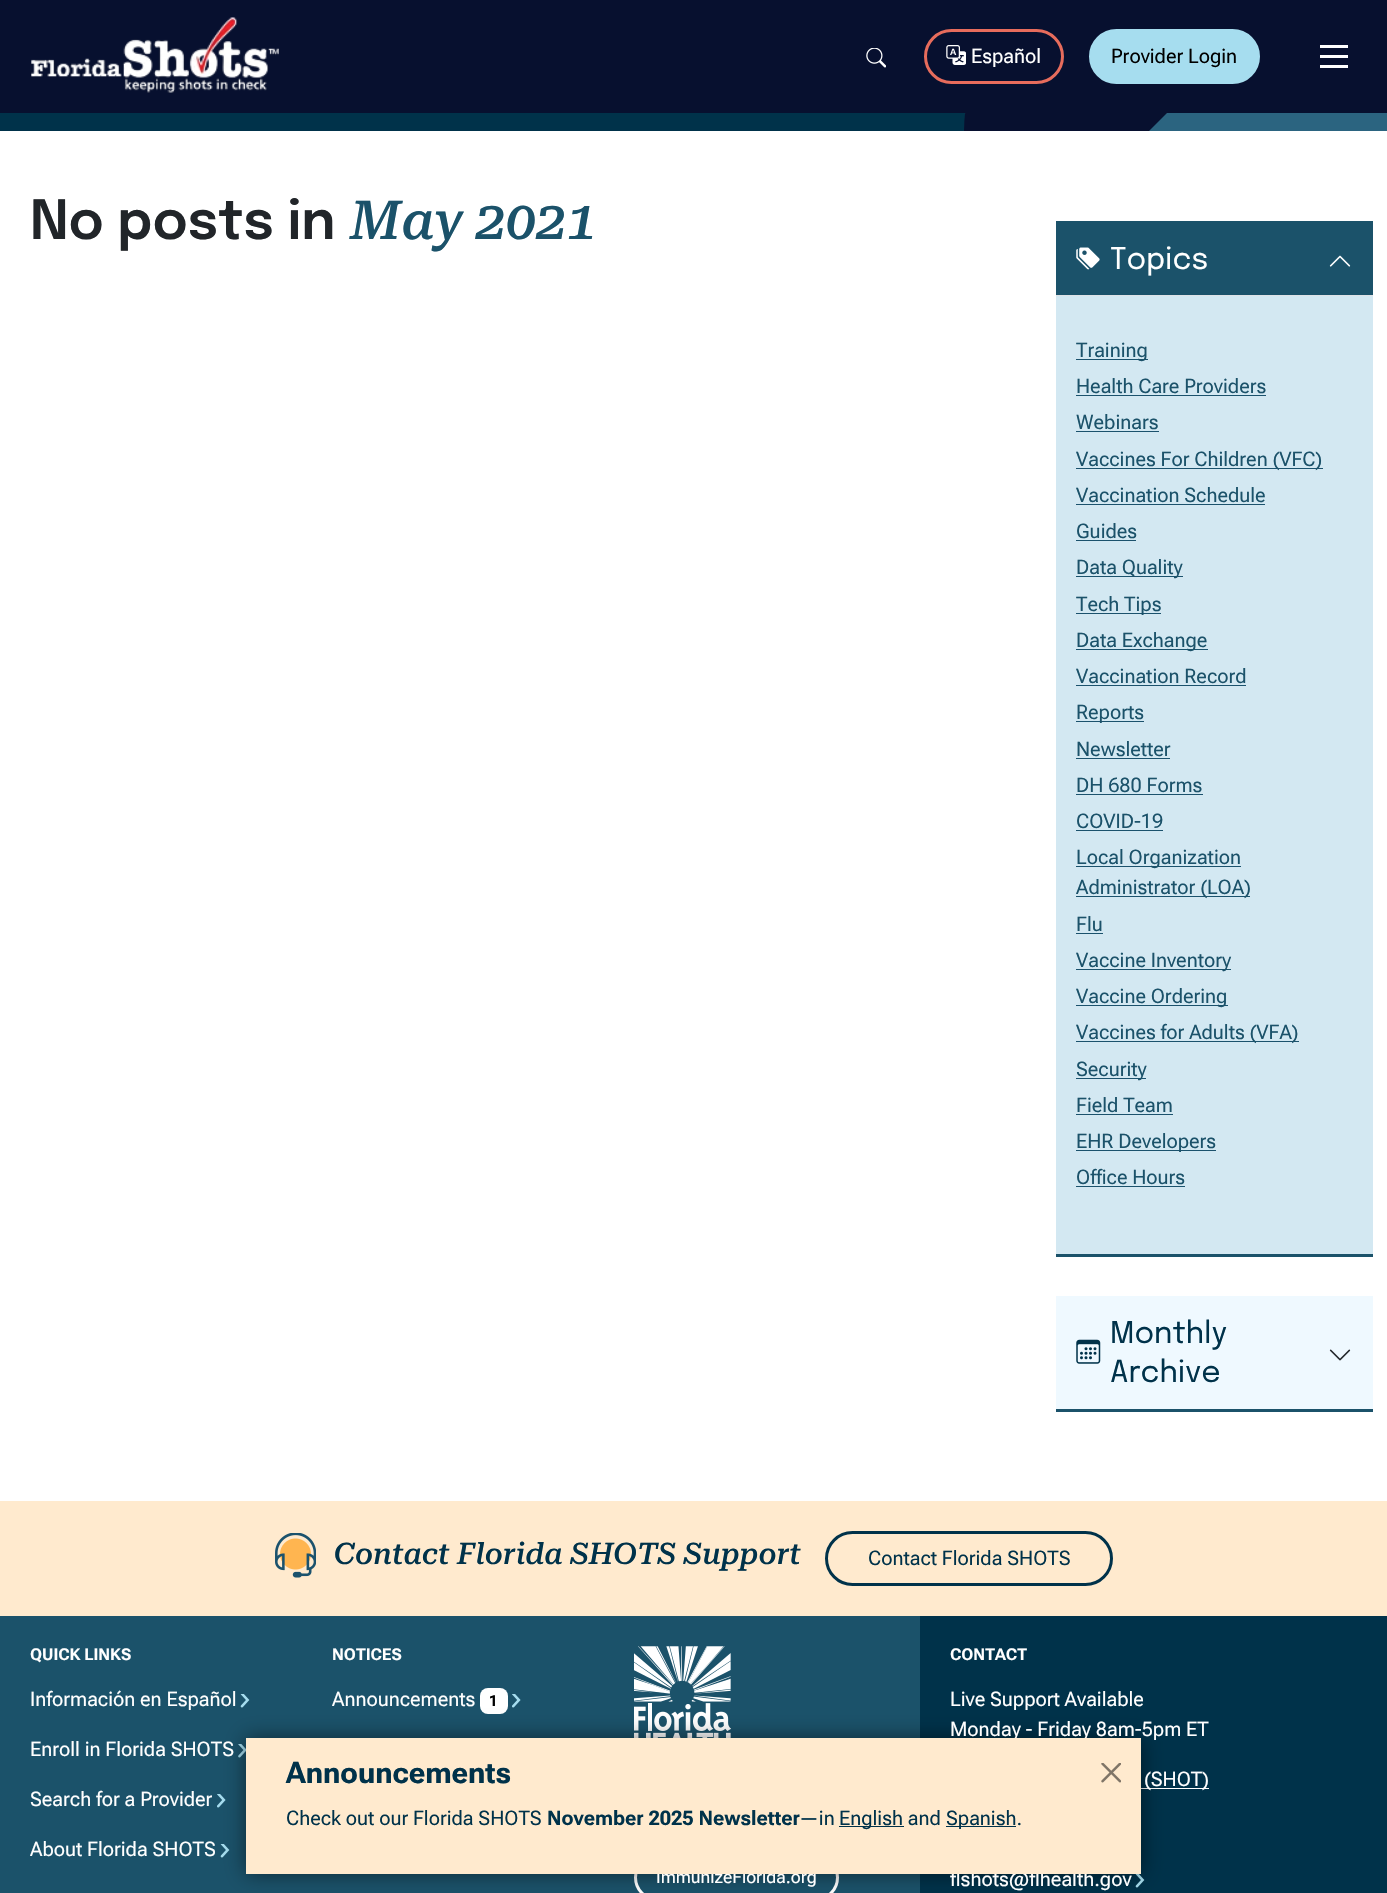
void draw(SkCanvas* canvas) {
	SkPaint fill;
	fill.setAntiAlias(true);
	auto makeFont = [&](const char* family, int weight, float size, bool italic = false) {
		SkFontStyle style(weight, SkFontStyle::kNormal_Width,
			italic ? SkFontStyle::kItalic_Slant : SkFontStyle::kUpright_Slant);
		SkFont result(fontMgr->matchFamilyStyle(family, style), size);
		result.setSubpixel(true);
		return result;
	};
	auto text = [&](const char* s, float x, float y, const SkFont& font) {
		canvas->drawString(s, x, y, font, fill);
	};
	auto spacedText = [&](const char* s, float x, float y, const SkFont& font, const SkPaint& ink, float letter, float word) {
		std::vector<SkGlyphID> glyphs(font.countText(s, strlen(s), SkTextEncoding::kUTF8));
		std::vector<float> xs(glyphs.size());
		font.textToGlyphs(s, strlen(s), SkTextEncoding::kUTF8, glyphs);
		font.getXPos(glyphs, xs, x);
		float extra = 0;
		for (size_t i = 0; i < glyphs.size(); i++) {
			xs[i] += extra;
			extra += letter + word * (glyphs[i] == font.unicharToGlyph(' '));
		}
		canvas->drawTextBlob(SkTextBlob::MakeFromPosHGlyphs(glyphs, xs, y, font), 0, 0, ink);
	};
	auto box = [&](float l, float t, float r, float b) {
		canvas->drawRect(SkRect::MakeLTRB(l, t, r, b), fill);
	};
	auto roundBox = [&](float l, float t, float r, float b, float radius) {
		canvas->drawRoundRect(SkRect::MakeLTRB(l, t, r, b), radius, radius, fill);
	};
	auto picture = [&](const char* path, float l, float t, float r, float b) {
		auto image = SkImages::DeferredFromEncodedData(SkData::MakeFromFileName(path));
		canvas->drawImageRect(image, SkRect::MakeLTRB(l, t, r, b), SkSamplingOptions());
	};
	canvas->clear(0xFFFFFFFF);
	fill.setColor(0xFF00324A);
	box(0, 113, 965, 131);
	canvas->save();
	canvas->clipRect(SkRect::MakeLTRB(0, 0, 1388, 131));
	fill.setColor(0xFF07102F);
	canvas->drawPath(SkPathBuilder().moveTo(1139, -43).cubicTo(1042, -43, 964, 35, 964, 132).lineTo(1314, 132).cubicTo(1314, 35, 1236, -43, 1139, -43).detach(), fill);
	fill.setColor(0xFF2B6480);
	canvas->drawPath(SkPathBuilder().moveTo(1148, 132).lineTo(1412, -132).lineTo(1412, 133).lineTo(1148, 133).close().detach(), fill);
	canvas->restore();
	fill.setColor(0xFF07102F);
	box(0, 0, 1387, 113);
	picture("image0.png", 31, 17, 279, 93);
	picture("image1.png", 866, 48, 886, 68);
	fill.setStyle(SkPaint::kStroke_Style);
	fill.setStrokeWidth(3);
	fill.setColor(0xFFE76C5C);
	canvas->drawRoundRect(SkRect::MakeLTRB(925.5f, 30.5f, 1062.5f, 82.5f), 26, 26, fill);
	picture("image2.png", 946, 45, 966, 65);
	fill.setStyle(SkPaint::kFill_Style);
	fill.setColor(0xFFA6DDEF);
	canvas->drawRoundRect(SkRect::MakeLTRB(1090.5f, 30.5f, 1258.5f, 82.5f), 26, 26, fill);
	fill.setStyle(SkPaint::kStroke_Style);
	canvas->drawRoundRect(SkRect::MakeLTRB(1090.5f, 30.5f, 1258.5f, 82.5f), 26, 26, fill);
	fill.setStyle(SkPaint::kFill_Style);
	fill.setColor(0xFFFFFFFF);
	box(1320, 45, 1348, 48);
	box(1320, 55, 1348, 58);
	box(1320, 65, 1348, 68);
	fill.setColor(0xFF1B526A);
	box(1056, 1254, 1373, 1257);
	box(1056, 221, 1373, 295);
	fill.setColor(0xFFDEE2E6);
	box(1056, 295, 1373, 296);
	picture("image3.png", 1076, 247, 1100, 270);
	picture("image4.png", 1329, 255, 1351, 267);
	fill.setColor(0xFFD3E8F2);
	box(1056, 296, 1373, 1254);
	fill.setColor(0xFF1B526D);
	box(1076, 359, 1148, 360);
	box(1076, 395, 1266, 396);
	box(1076, 431, 1159, 432);
	box(1076, 468, 1323, 469);
	box(1076, 504, 1265, 505);
	box(1076, 540, 1136, 541);
	box(1076, 576, 1183, 577);
	box(1076, 613, 1161, 614);
	box(1076, 649, 1208, 650);
	box(1076, 685, 1246, 686);
	box(1076, 721, 1144, 722);
	box(1076, 758, 1170, 759);
	box(1076, 794, 1203, 795);
	box(1076, 830, 1163, 831);
	box(1076, 866, 1241, 867);
	box(1076, 896, 1250, 897);
	box(1076, 933, 1103, 934);
	box(1076, 969, 1231, 970);
	box(1076, 1005, 1228, 1006);
	box(1076, 1041, 1299, 1042);
	box(1076, 1078, 1146, 1079);
	box(1076, 1114, 1173, 1115);
	box(1076, 1150, 1216, 1151);
	box(1076, 1186, 1185, 1187);
	fill.setColor(0xFF1B526A);
	box(1056, 1409, 1373, 1412);
	fill.setColor(0xFFEFF9FF);
	box(1056, 1296, 1373, 1409);
	picture("image5.png", 1076, 1339, 1101, 1364);
	picture("image6.png", 1329, 1349, 1351, 1361);
	fill.setColor(0xFFFFEACE);
	box(0, 1501, 1387, 1616);
	picture("image7.png", 275, 1533, 316, 1578);
	fill.setStyle(SkPaint::kStroke_Style);
	fill.setColor(0xFF00324A);
	canvas->drawRoundRect(SkRect::MakeLTRB(826.5f, 1532.5f, 1111.5f, 1584.5f), 26, 26, fill);
	fill.setStyle(SkPaint::kFill_Style);
	fill.setColor(0xFF1B526A);
	box(0, 1616, 920, 1893);
	picture("image8.png", 240, 1694, 250, 1708);
	picture("image9.png", 238, 1744, 246, 1758);
	picture("image10.png", 217, 1794, 226, 1808);
	picture("image8.png", 220, 1844, 230, 1858);
	fill.setColor(0xFFFFFFFF);
	roundBox(480, 1688, 508, 1714, 8);
	picture("image10.png", 512, 1694, 521, 1708);
	picture("image11.png", 634, 1646, 731, 1738);
	fill.setStyle(SkPaint::kStroke_Style);
	canvas->drawRoundRect(SkRect::MakeLTRB(635.5f, 1855.5f, 837.5f, 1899.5f), 22, 22, fill);
	fill.setStyle(SkPaint::kFill_Style);
	fill.setColor(0xFF00324A);
	box(920, 1616, 1387, 1893);
	fill.setColor(0xFFFFFFFF);
	box(1141, 1788, 1209, 1789);
	picture("image12.png", 1135, 1874, 1145, 1888);
	fill.setColor(0x80000000);
	fill.setMaskFilter(SkMaskFilter::MakeBlur(kNormal_SkBlurStyle, 10));
	canvas->drawRect(SkRect::MakeLTRB(246, 1738, 1141, 1874), fill);
	fill.setMaskFilter(nullptr);
	auto font1 = makeFont("Roboto Flex", 400, 20);
	fill.setColor(0xFFFFFFFF);
	text("Español", 971, 63, font1);
	fill.setColor(0xFF000000);
	text("Provider Login", 1111, 63, font1);
	auto font2 = makeFont("Epilogue", 600, 54);
	fill.setColor(0xFF212529);
	text("No posts in", 30, 239, font2);
	auto font3 = makeFont("Roboto Serif", 500, 54, true);
	fill.setColor(0xFF1B526A);
	spacedText("May 2021", 350, 239, font3, fill, 0, -1);
	auto font4 = makeFont("Epilogue", 400, 30);
	fill.setColor(0xFFFFFFFF);
	text("Topics", 1110, 269, font4);
	fill.setColor(0xFF1B526A);
	text("Training", 1076, 357, font1);
	text("Health Care Providers", 1076, 393, font1);
	text("Webinars", 1076, 429, font1);
	text("Vaccines For Children (VFC)", 1076, 466, font1);
	text("Vaccination Schedule", 1076, 502, font1);
	text("Guides", 1076, 538, font1);
	text("Data Quality", 1076, 574, font1);
	text("Tech Tips", 1076, 611, font1);
	text("Data Exchange", 1076, 647, font1);
	text("Vaccination Record", 1076, 683, font1);
	text("Reports", 1076, 719, font1);
	text("Newsletter", 1076, 756, font1);
	text("DH 680 Forms", 1076, 792, font1);
	text("COVID-19", 1076, 828, font1);
	text("Local Organization", 1076, 864, font1);
	text("Administrator (LOA)", 1076, 894, font1);
	text("Flu", 1076, 931, font1);
	text("Vaccine Inventory", 1076, 967, font1);
	text("Vaccine Ordering", 1076, 1003, font1);
	text("Vaccines for Adults (VFA)", 1076, 1039, font1);
	text("Security", 1076, 1076, font1);
	text("Field Team", 1076, 1112, font1);
	text("EHR Developers", 1076, 1148, font1);
	text("Office Hours", 1076, 1184, font1);
	fill.setColor(0xFF00324A);
	text("Monthly", 1110, 1343, font4);
	text("Archive", 1110, 1382, font4);
	auto font5 = makeFont("Roboto Serif", 500, 30, true);
	text("Contact Florida SHOTS Support", 334, 1564, font5);
	text("Contact Florida SHOTS", 868, 1565, font1);
	auto font6 = makeFont("Roboto Flex", 700, 16.25f);
	fill.setColor(0xFFFFFFFF);
	text("QUICK LINKS", 30, 1660, font6);
	text("Información en Español", 30, 1706, font1);
	text("Enroll in Florida SHOTS", 30, 1756, font1);
	text("Search for a Provider", 30, 1806, font1);
	text("About Florida SHOTS", 30, 1856, font1);
	text("NOTICES", 332, 1660, font6);
	text("Announcements", 332, 1706, font1);
	auto font7 = makeFont("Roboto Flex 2", 700, 15);
	fill.setColor(0xFF000000);
	text("1", 489, 1706, font7);
	auto font8 = makeFont("Roboto Flex 2", 400, 17.5f);
	fill.setColor(0xFFFFFFFF);
	text("ImmunizeFlorida.org", 656, 1883, font8);
	text("CONTACT", 950, 1660, font6);
	text("Live Support Available", 950, 1706, font1);
	text("Monday - Friday 8am-5pm ET", 950, 1736, font1);
	text("(SHOT)", 1144, 1786, font1);
	text("flshots@flhealth.gov", 950, 1886, font1);
	fill.setColor(0xFFFFEACE);
	box(246, 1738, 1141, 1874);
	auto font9 = makeFont("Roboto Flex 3", 700, 29.75f);
	fill.setColor(0xFF00324A);
	text("Announcements", 286, 1783, font9);
	picture("image13.png", 1101, 1763, 1121, 1783);
	text("Check out our Florida SHOTS", 286, 1825, font1);
	auto font10 = makeFont("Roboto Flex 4", 700, 20);
	text("November 2025 Newsletter", 547, 1825, font10);
	text("—in", 799, 1825, font1);
	box(839, 1826, 904, 1827);
	text("English and", 839, 1825, font1);
	box(946, 1826, 1016, 1827);
	text("Spanish.", 946, 1825, font1);
}
